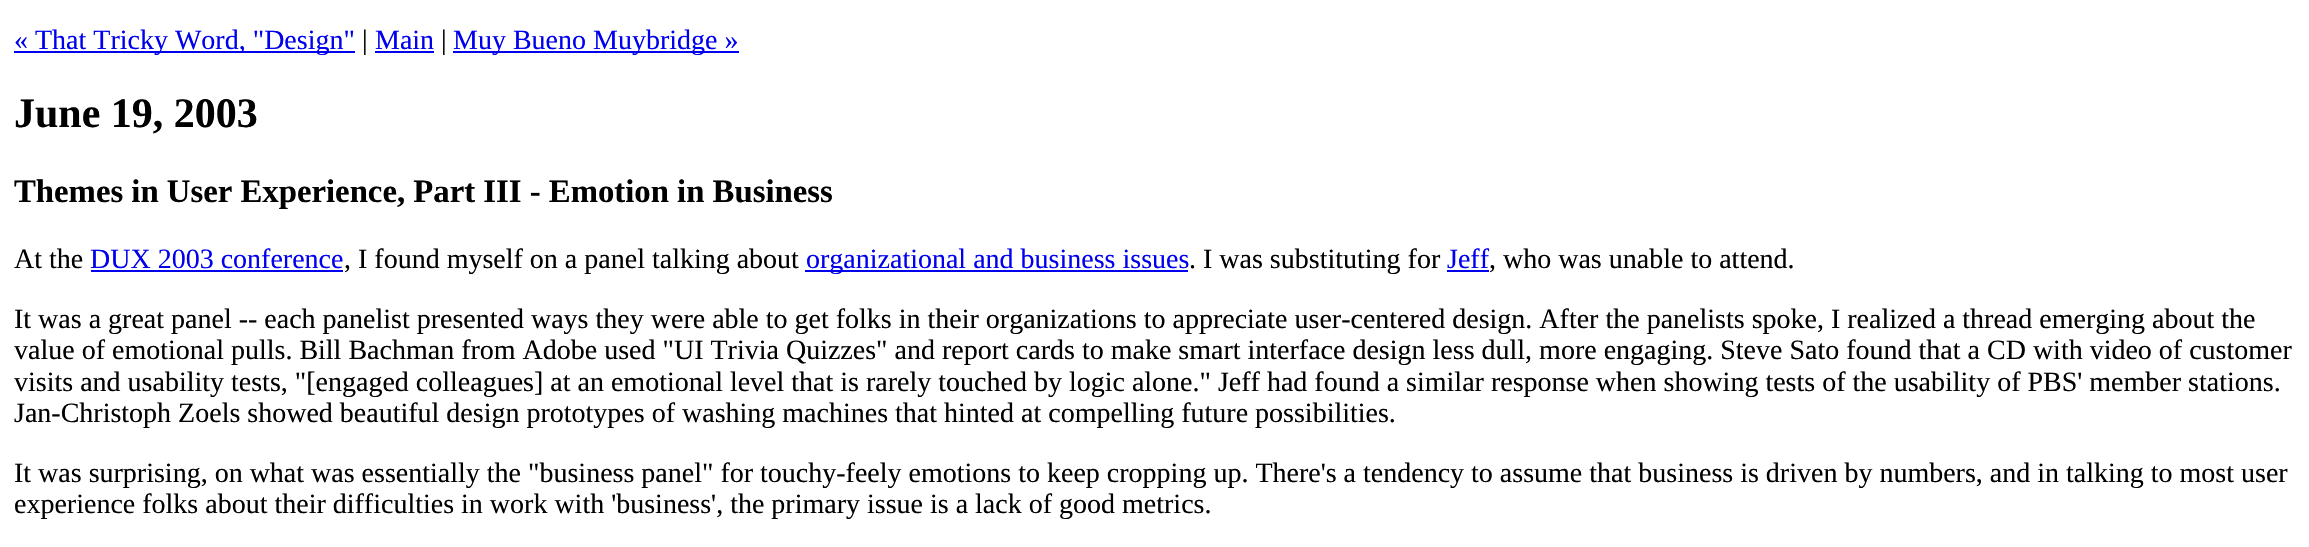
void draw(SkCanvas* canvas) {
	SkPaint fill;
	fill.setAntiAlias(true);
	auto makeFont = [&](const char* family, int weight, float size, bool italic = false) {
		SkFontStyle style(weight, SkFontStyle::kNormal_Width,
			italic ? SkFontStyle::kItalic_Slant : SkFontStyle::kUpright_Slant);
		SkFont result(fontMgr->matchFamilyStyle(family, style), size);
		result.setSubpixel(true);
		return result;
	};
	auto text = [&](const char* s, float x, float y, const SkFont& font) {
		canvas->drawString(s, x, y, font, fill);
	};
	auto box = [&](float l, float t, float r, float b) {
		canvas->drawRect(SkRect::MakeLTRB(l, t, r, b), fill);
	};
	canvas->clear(0xFFFFFFFF);
	fill.setColor(0xFF0000EE);
	box(14, 51, 355, 53);
	box(375, 51, 434, 53);
	box(453, 51, 739, 53);
	box(91, 270, 343, 272);
	box(805, 270, 1188, 272);
	box(1447, 270, 1489, 272);
	auto font1 = makeFont("Liberation Serif", 400, 28);
	text("« That Tricky Word, \"Design\"", 14, 49, font1);
	fill.setColor(0xFF000000);
	text("|", 362, 49, font1);
	fill.setColor(0xFF0000EE);
	text("Main", 375, 49, font1);
	fill.setColor(0xFF000000);
	text("|", 441, 49, font1);
	fill.setColor(0xFF0000EE);
	text("Muy Bueno Muybridge »", 453, 49, font1);
	auto font2 = makeFont("Liberation Serif", 700, 42);
	fill.setColor(0xFF000000);
	text("June 19, 2003", 14, 127, font2);
	auto font3 = makeFont("Liberation Serif", 700, 32.75f);
	text("Themes in User Experience, Part III - Emotion in Business", 14, 202, font3);
	text("At the", 14, 268, font1);
	fill.setColor(0xFF0000EE);
	text("DUX 2003 conference", 90, 268, font1);
	fill.setColor(0xFF000000);
	text(", I found myself on a panel talking about", 344, 268, font1);
	fill.setColor(0xFF0000EE);
	text("organizational and business issues", 806, 268, font1);
	fill.setColor(0xFF000000);
	text(". I was substituting for", 1189, 268, font1);
	fill.setColor(0xFF0000EE);
	text("Jeff", 1447, 268, font1);
	fill.setColor(0xFF000000);
	text(", who was unable to attend.", 1489, 268, font1);
	text("It was a great panel -- each panelist presented ways they were able to get folks in their organizations to appreciate user-centered design. After the panelists spoke, I realized a thread emerging about the", 14, 328, font1);
	text("value of emotional pulls. Bill Bachman from Adobe used \"UI Trivia Quizzes\" and report cards to make smart interface design less dull, more engaging. Steve Sato found that a CD with video of customer", 14, 359, font1);
	text("visits and usability tests, \"[engaged colleagues] at an emotional level that is rarely touched by logic alone.\" Jeff had found a similar response when showing tests of the usability of PBS' member stations.", 14, 391, font1);
	text("Jan-Christoph Zoels showed beautiful design prototypes of washing machines that hinted at compelling future possibilities.", 14, 422, font1);
	text("It was surprising, on what was essentially the \"business panel\" for touchy-feely emotions to keep cropping up. There's a tendency to assume that business is driven by numbers, and in talking to most user", 14, 482, font1);
	text("experience folks about their difficulties in work with 'business', the primary issue is a lack of good metrics.", 14, 513, font1);
}
